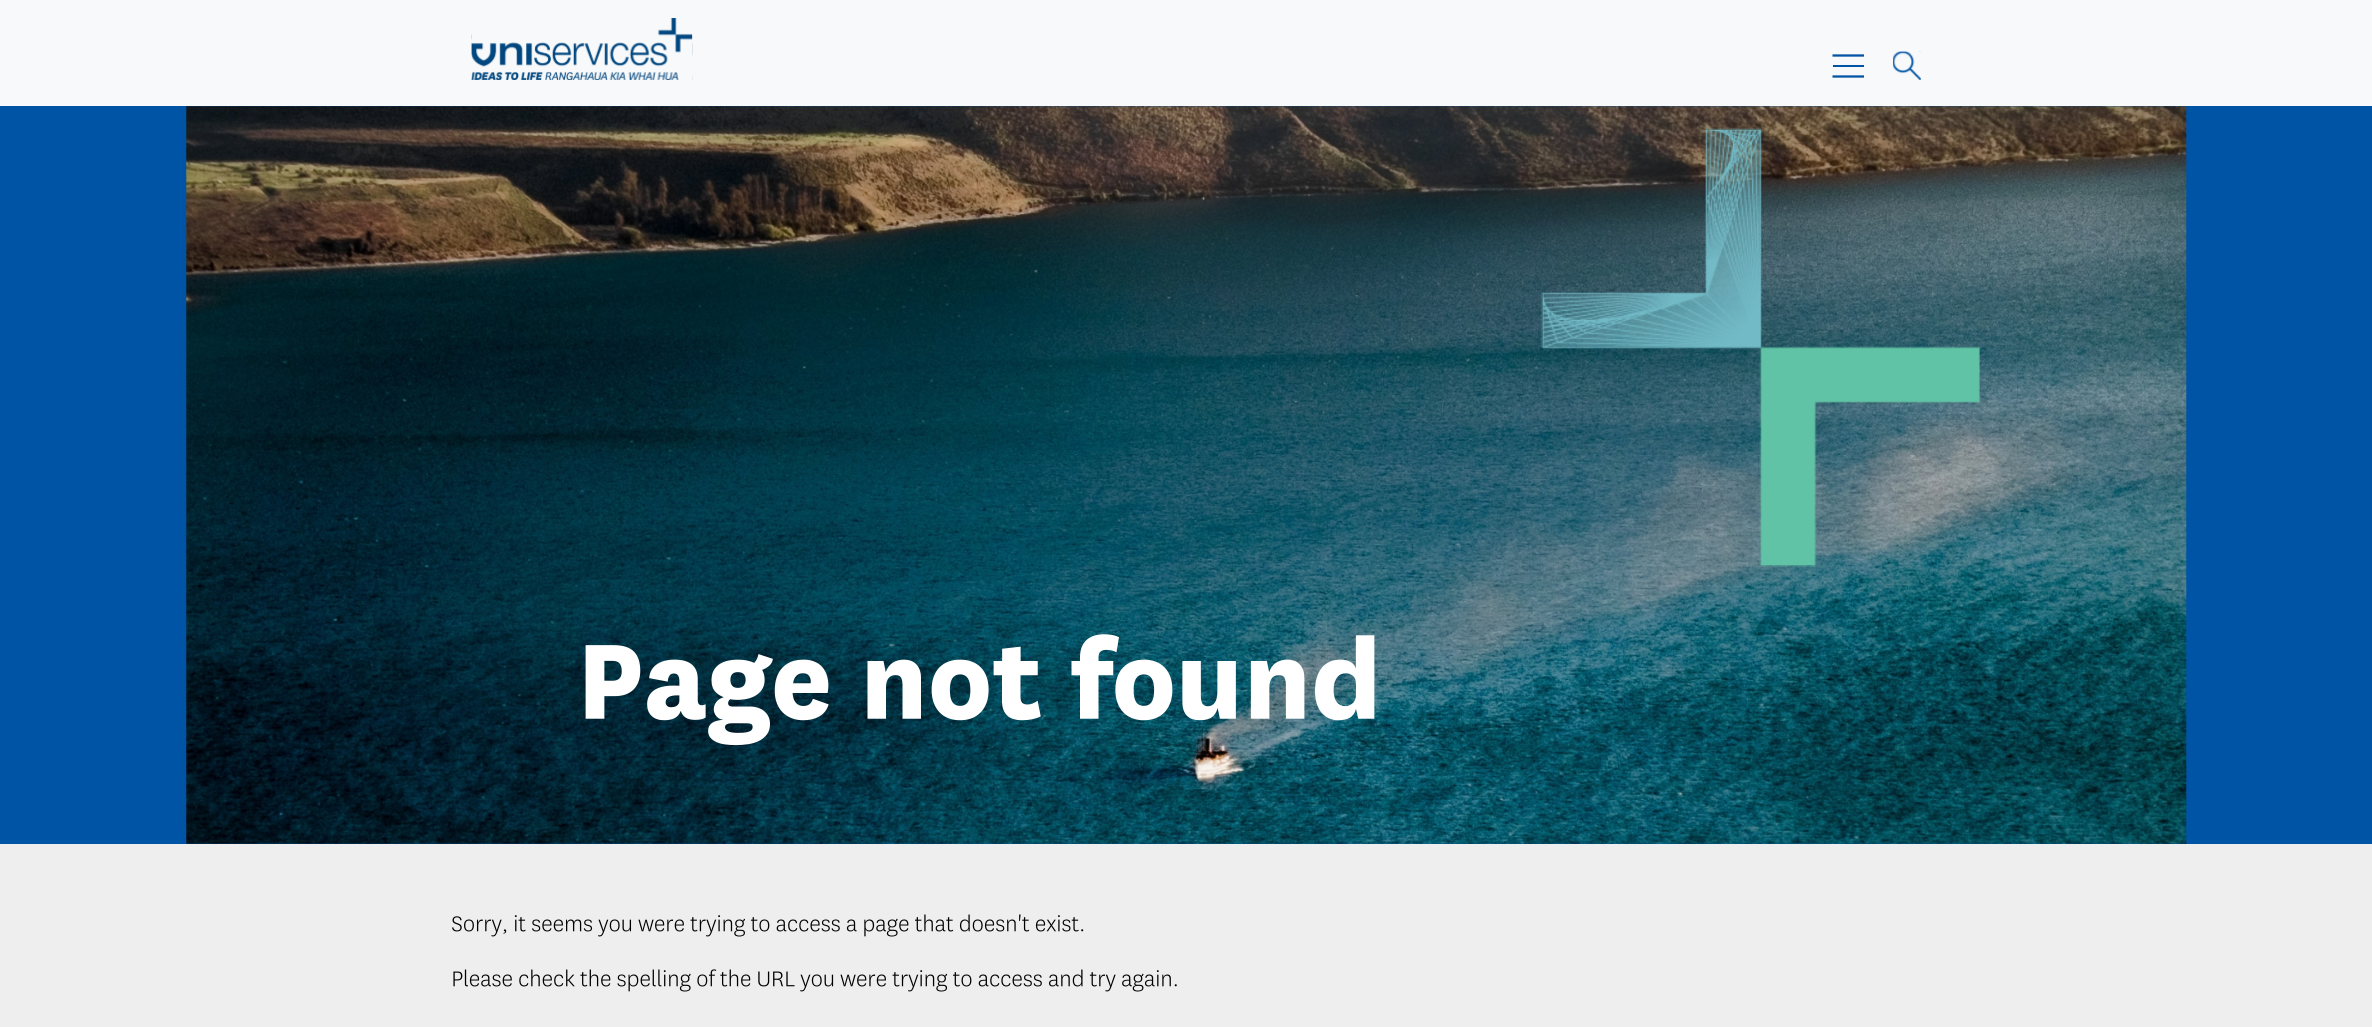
void draw(SkCanvas* canvas) {
	SkPaint fill;
	fill.setAntiAlias(true);
	auto box = [&](float l, float t, float r, float b) {
		canvas->drawRect(SkRect::MakeLTRB(l, t, r, b), fill);
	};
	auto picture = [&](const char* path, float l, float t, float r, float b) {
		auto image = SkImages::DeferredFromEncodedData(SkData::MakeFromFileName(path));
		canvas->drawImageRect(image, SkRect::MakeLTRB(l, t, r, b), SkSamplingOptions());
	};
	canvas->clear(0xFFEEEEEE);
	fill.setColor(0xFFF8F9FA);
	box(0, 0, 2372, 106);
	picture("image0.png", 471, 18, 693, 80);
	fill.setStyle(SkPaint::kStroke_Style);
	fill.setStrokeWidth(2.3f);
	fill.setColor(0xFF0054A6);
	canvas->drawPath(SkPathBuilder().moveTo(1832.5f, 55.5f).lineTo(1864, 55.5f).detach(), fill);
	fill.setStyle(SkPaint::kFill_Style);
	box(1833, 65, 1864, 67);
	fill.setStyle(SkPaint::kStroke_Style);
	canvas->drawPath(SkPathBuilder().moveTo(1832.5f, 76.5f).lineTo(1864, 76.5f).detach(), fill);
	picture("image1.png", 1893, 51, 1921, 80);
	fill.setStyle(SkPaint::kFill_Style);
	box(0, 106, 2372, 844);
	picture("image2.png", 186, 106, 2187, 844);
	picture("image3.png", 585, 634, 1375, 746);
	picture("image4.png", 452, 914, 1084, 937);
	picture("image5.png", 453, 969, 1177, 992);
}
